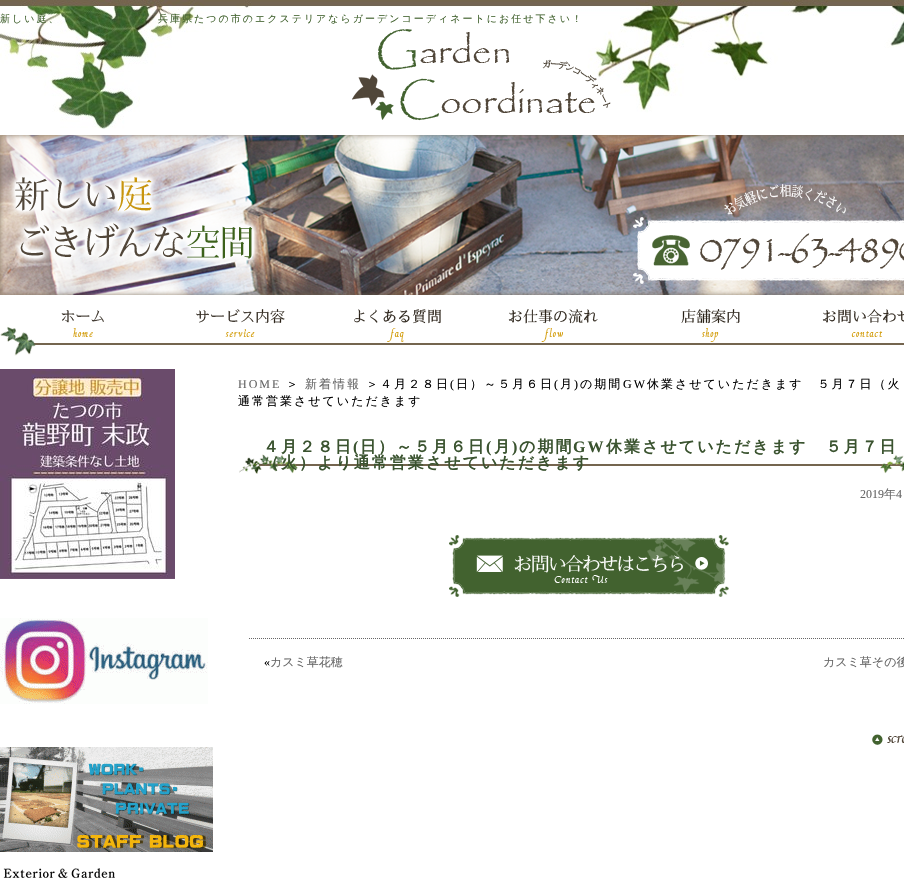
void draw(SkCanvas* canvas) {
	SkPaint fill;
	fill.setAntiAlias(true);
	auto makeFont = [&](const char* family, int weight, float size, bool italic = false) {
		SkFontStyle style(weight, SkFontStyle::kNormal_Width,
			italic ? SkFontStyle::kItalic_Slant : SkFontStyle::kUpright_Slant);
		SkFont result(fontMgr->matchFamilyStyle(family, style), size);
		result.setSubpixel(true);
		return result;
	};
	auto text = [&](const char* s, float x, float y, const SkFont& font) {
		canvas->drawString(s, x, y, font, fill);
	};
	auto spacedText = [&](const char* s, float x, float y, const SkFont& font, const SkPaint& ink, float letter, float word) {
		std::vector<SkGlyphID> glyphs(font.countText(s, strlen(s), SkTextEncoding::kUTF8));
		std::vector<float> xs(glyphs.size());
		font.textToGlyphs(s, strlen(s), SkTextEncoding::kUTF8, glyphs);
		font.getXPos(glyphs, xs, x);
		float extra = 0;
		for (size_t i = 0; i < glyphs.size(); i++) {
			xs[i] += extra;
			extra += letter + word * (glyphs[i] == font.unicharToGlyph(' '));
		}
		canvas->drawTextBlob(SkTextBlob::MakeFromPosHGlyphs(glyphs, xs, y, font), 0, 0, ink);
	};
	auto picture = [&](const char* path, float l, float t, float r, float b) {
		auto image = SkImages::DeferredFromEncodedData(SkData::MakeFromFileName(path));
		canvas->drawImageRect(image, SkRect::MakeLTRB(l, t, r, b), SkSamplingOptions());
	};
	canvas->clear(0xFFFFFFFF);
	picture("image0.png", 0, 0, 904, 129);
	picture("image1.png", 0, 29, 904, 295);
	picture("image2.png", 0, 310, 158, 356);
	picture("image3.png", 158, 309, 316, 345);
	picture("image4.png", 316, 309, 474, 345);
	picture("image5.png", 474, 309, 632, 345);
	picture("image6.png", 632, 309, 790, 345);
	picture("image7.png", 790, 309, 904, 345);
	picture("image8.png", 0, 369, 175, 579);
	picture("image9.png", 0, 618, 208, 704);
	picture("image10.png", 0, 747, 213, 852);
	picture("image11.png", 3, 868, 115, 878);
	picture("image12.png", 239, 454, 904, 474);
	picture("image13.png", 449, 535, 729, 597);
	fill.setStyle(SkPaint::kStroke_Style);
	fill.setStrokeWidth(1);
	fill.setColor(0xFF666666);
	fill.setPathEffect(SkDashPathEffect::Make({{1, 1}}, 0));
	canvas->drawPath(SkPathBuilder().moveTo(249, 638.5f).lineTo(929, 638.5f).detach(), fill);
	fill.setPathEffect(nullptr);
	picture("image14.png", 872, 734, 904, 745);
	auto font1 = makeFont("WenQuanYi Zen Hei", 500, 10);
	fill.setStyle(SkPaint::kFill_Style);
	fill.setColor(0xFF42622F);
	spacedText("新しい庭、", 0, 22, font1, fill, 2, 0);
	spacedText("兵庫県たつの市のエクステリアならガーデンコーディネートにお任せ下さい！", 158, 22, font1, fill, 2, 0);
	auto font2 = makeFont("Liberation Serif", 400, 12);
	fill.setColor(0xFF666666);
	spacedText("HOME", 238, 388, font2, fill, 2, 0);
	auto font3 = makeFont("WenQuanYi Zen Hei", 500, 12);
	fill.setColor(0xFF000000);
	spacedText("＞", 286, 388, font3, fill, 2, 0);
	fill.setColor(0xFF666666);
	spacedText("新着情報", 305, 388, font3, fill, 2, 0);
	fill.setColor(0xFF000000);
	spacedText("＞４月２８日", 366, 388, font3, fill, 2, 0);
	spacedText("(", 450, 388, font2, fill, 2, 0);
	spacedText("日）～５月６日", 456, 388, font3, fill, 2, 0);
	spacedText("(", 554, 388, font2, fill, 2, 0);
	spacedText("月", 560, 388, font3, fill, 2, 0);
	spacedText(")", 574, 388, font2, fill, 2, 0);
	spacedText("の期間", 580, 388, font3, fill, 2, 0);
	spacedText("GW", 623, 388, font2, fill, 2, 0);
	spacedText("休業させていただきます　５月７日（火", 647, 388, font3, fill, 2, 0);
	spacedText("通常営業させていただきます", 238, 405, font3, fill, 2, 0);
	auto font4 = makeFont("WenQuanYi Zen Hei", 700, 16);
	fill.setColor(0xFF3A532F);
	spacedText("４月２８日", 263, 452, font4, fill, 2, 0);
	auto font5 = makeFont("Liberation Serif", 700, 16);
	spacedText("(", 353, 452, font5, fill, 2, 0);
	spacedText("日）～５月６日", 360, 452, font4, fill, 2, 0);
	spacedText("(", 486, 452, font5, fill, 2, 0);
	spacedText("月", 494, 452, font4, fill, 2, 0);
	spacedText(")", 512, 452, font5, fill, 2, 0);
	spacedText("の期間", 519, 452, font4, fill, 2, 0);
	spacedText("GW", 573, 452, font5, fill, 2, 0);
	spacedText("休業させていただきます　５月７日", 606, 452, font4, fill, 2, 0);
	spacedText("（火）より通常営業させていただきます", 263, 468, font4, fill, 2, 0);
	fill.setColor(0xFF666666);
	text("2019", 860, 498, font2);
	text("年", 884, 498, font3);
	text("4", 896, 498, font2);
	fill.setColor(0xFF000000);
	text("«", 264, 666, font2);
	fill.setColor(0xFF666666);
	text("カスミ草花穂", 270, 666, font3);
	text("カスミ草その後", 823, 666, font3);
}
